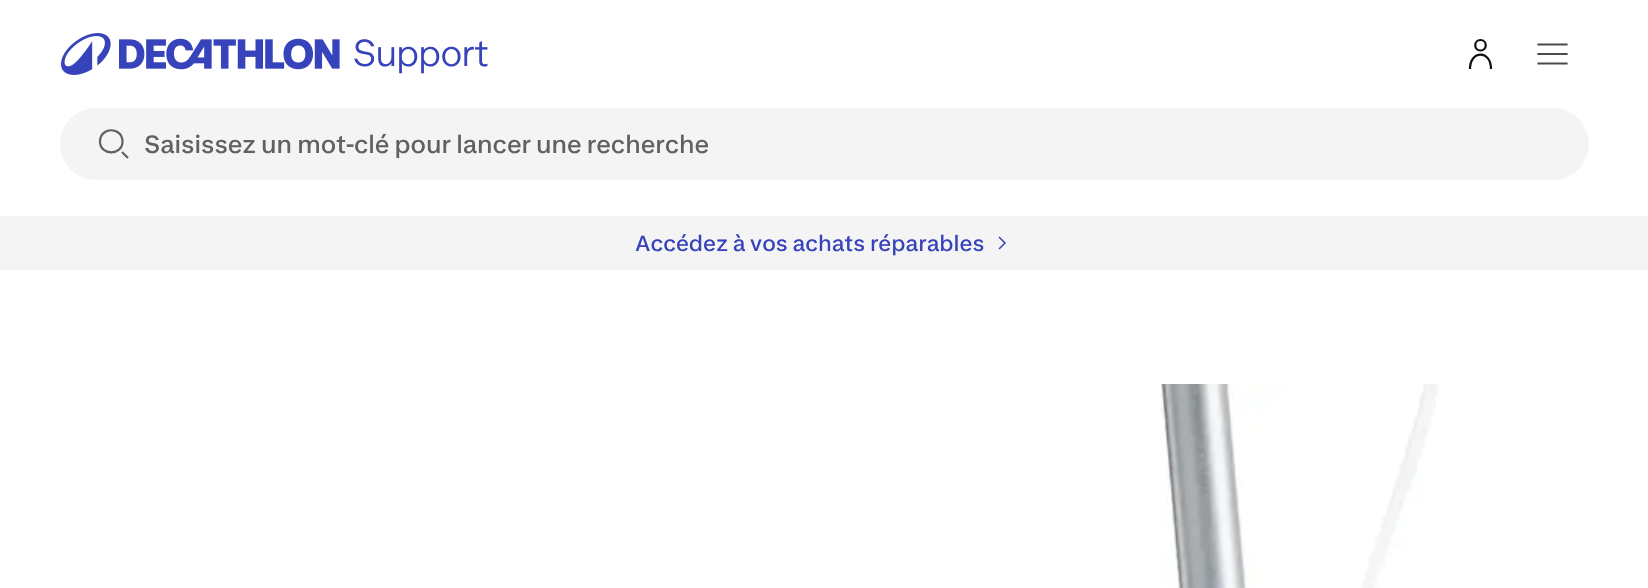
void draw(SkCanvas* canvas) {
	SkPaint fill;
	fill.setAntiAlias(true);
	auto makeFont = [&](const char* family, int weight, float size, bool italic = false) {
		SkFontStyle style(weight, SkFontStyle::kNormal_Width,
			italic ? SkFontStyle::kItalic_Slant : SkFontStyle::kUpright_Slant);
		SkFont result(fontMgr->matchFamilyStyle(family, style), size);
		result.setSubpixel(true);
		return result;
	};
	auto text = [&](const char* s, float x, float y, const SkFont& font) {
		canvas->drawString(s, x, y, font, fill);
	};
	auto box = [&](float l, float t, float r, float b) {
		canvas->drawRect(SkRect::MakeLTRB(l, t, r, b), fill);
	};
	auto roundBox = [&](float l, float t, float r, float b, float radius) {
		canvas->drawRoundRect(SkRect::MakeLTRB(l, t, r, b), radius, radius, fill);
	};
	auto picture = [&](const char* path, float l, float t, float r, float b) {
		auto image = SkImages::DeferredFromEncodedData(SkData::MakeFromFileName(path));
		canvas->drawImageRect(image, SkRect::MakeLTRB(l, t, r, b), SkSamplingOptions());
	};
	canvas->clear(0xFFFFFFFF);
	picture("image0.png", 61, 33, 340, 75);
	fill.setStyle(SkPaint::kStroke_Style);
	fill.setStrokeWidth(2.2f);
	fill.setColor(0xFF101010);
	canvas->drawPath(SkPathBuilder().moveTo(1470, 69).cubicTo(1470, 50, 1491, 49.5f, 1491, 69).moveTo(1480.5f, 40).cubicTo(1473.5f, 40, 1473.5f, 50.5f, 1480.5f, 50.5f).cubicTo(1487.5f, 50.5f, 1487.5f, 40, 1480.5f, 40).close().detach(), fill);
	fill.setStrokeCap(SkPaint::kSquare_Cap);
	fill.setColor(0xFF4A4A4A);
	canvas->drawPath(SkPathBuilder().moveTo(1538.5f, 54).lineTo(1566.5f, 54).moveTo(1538.5f, 44.5f).lineTo(1566.5f, 44.5f).moveTo(1538.5f, 63.5f).lineTo(1566.5f, 63.5f).detach(), fill);
	fill.setStyle(SkPaint::kFill_Style);
	fill.setColor(0xFFF5F4F5);
	roundBox(60, 108, 1589, 180, 36);
	fill.setStyle(SkPaint::kStroke_Style);
	fill.setStrokeCap(SkPaint::kButt_Cap);
	fill.setColor(0xFF616161);
	canvas->drawPath(SkPathBuilder().moveTo(128, 158).lineTo(122, 152).moveTo(122.5f, 141.5f).cubicTo(122.5f, 156, 100, 156, 100, 141.5f).cubicTo(100, 126.5f, 122.5f, 126.5f, 122.5f, 141.5f).close().detach(), fill);
	fill.setStyle(SkPaint::kFill_Style);
	fill.setColor(0xFFF5F4F5);
	box(0, 216, 1648, 270);
	fill.setStyle(SkPaint::kStroke_Style);
	fill.setStrokeWidth(1.5f);
	fill.setColor(0xFF3643BA);
	canvas->drawPath(SkPathBuilder().moveTo(999, 249).lineTo(1005, 243).lineTo(999, 237).detach(), fill);
	picture("image1.png", 1160, 384, 1439, 588);
	auto font1 = makeFont("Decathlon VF", 300, 36);
	fill.setStyle(SkPaint::kFill_Style);
	text("Support", 353, 66, font1);
	auto font2 = makeFont("Decathlon VF", 500, 24);
	fill.setColor(0xFF616161);
	text("Saisissez un mot-clé pour lancer une recherche", 144, 153, font2);
	auto font3 = makeFont("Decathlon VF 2", 500, 21);
	fill.setColor(0xFF3643BA);
	text("Accédez à vos achats réparables", 635, 251, font3);
}
